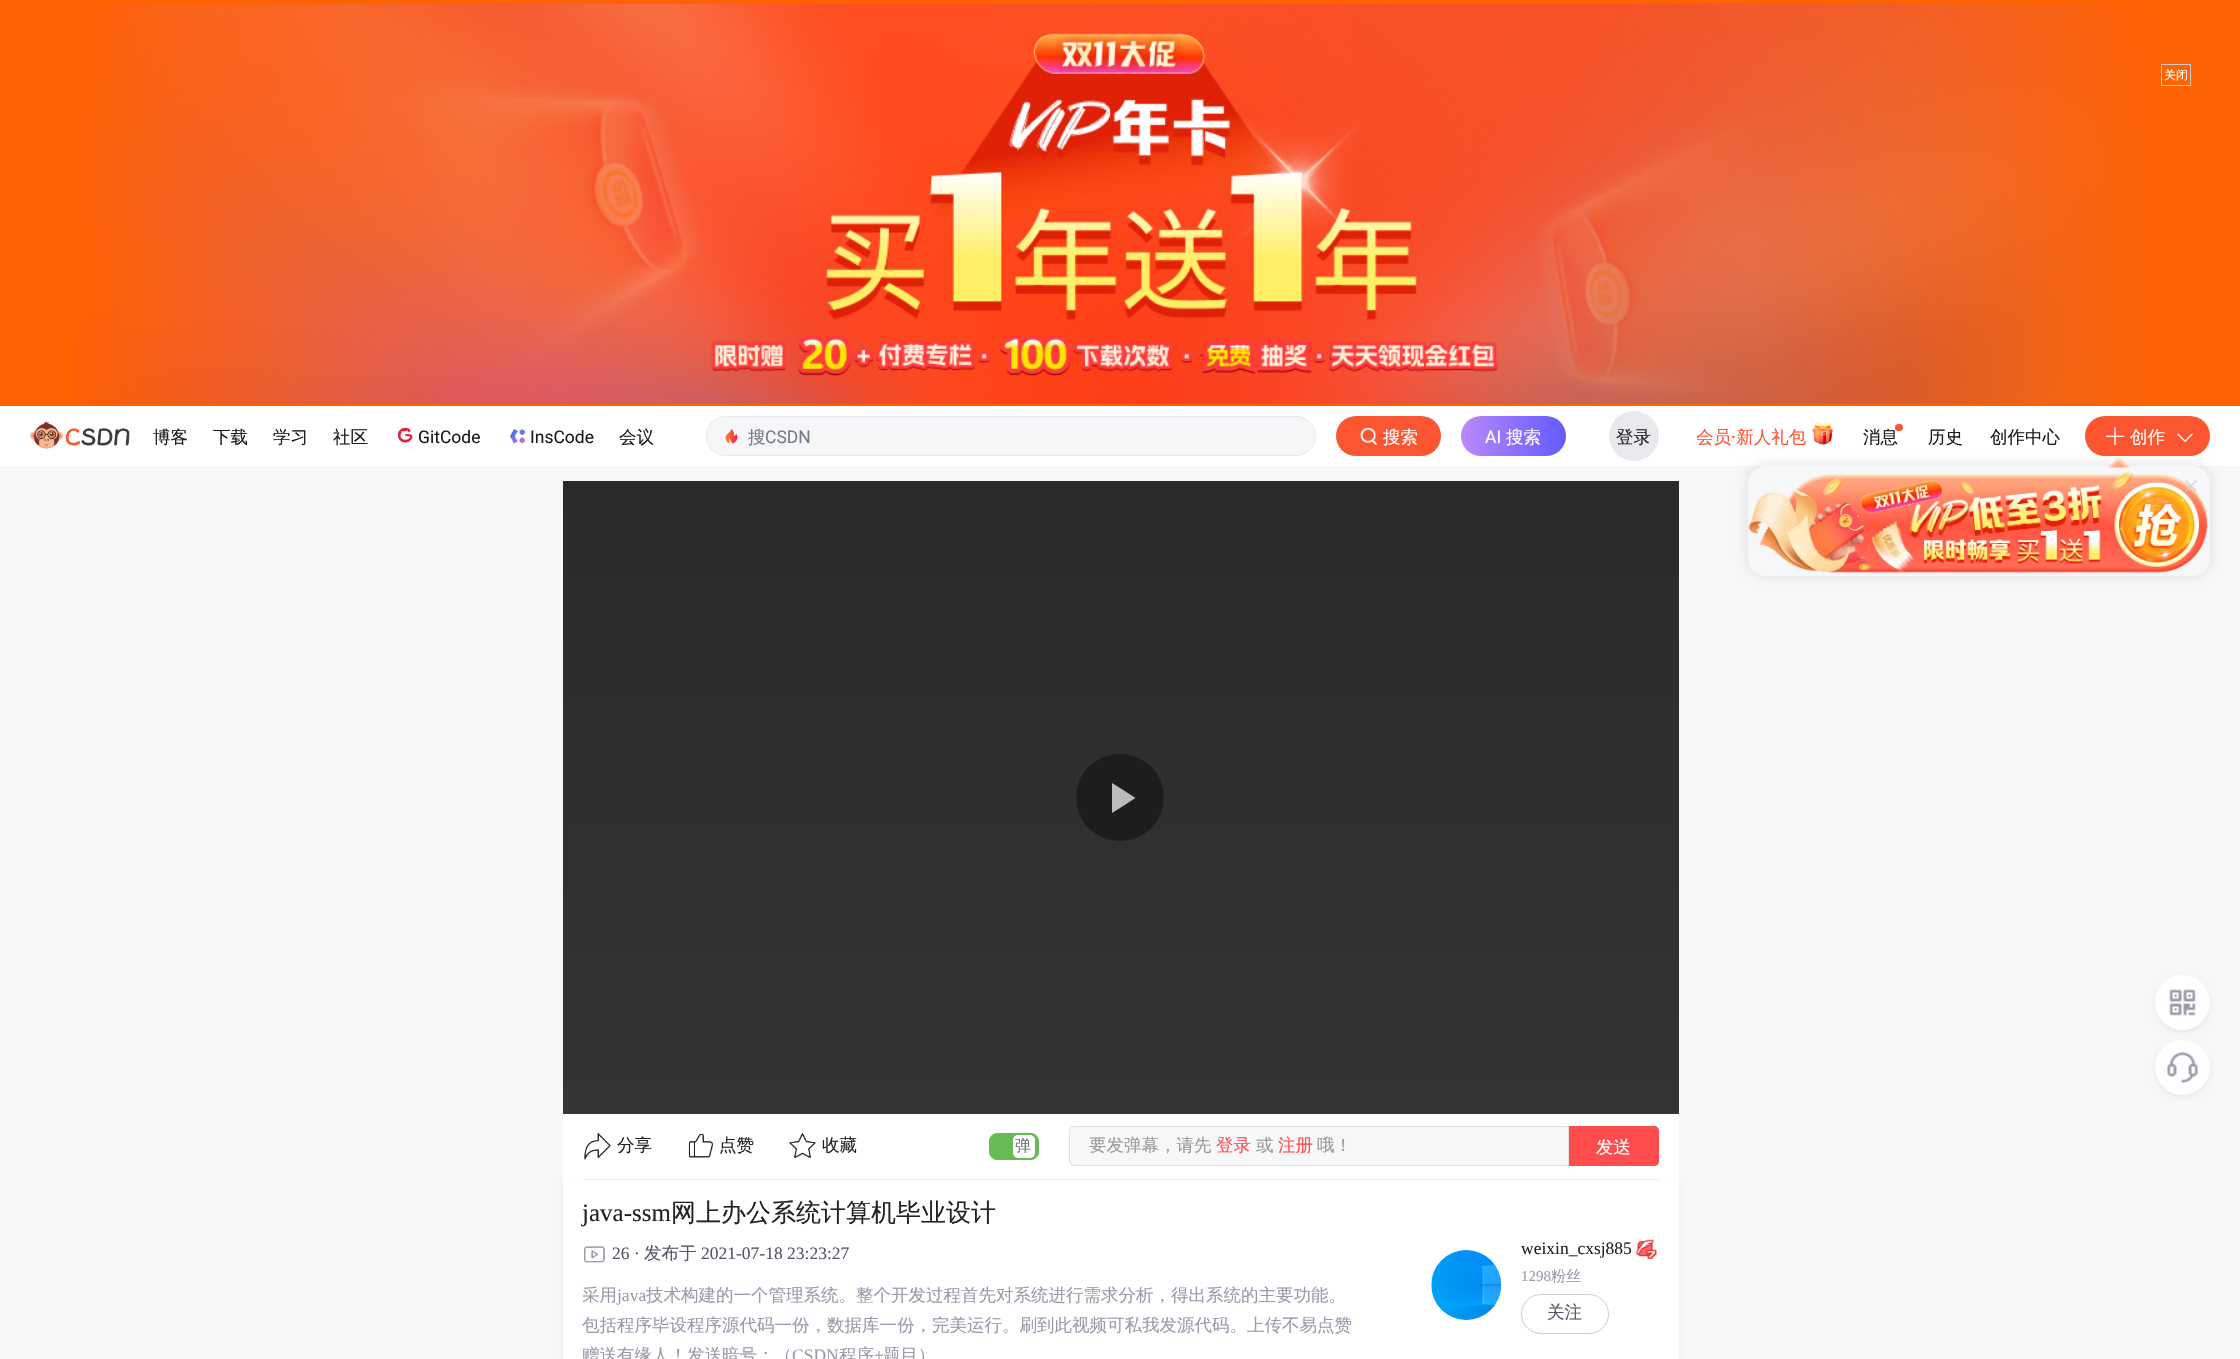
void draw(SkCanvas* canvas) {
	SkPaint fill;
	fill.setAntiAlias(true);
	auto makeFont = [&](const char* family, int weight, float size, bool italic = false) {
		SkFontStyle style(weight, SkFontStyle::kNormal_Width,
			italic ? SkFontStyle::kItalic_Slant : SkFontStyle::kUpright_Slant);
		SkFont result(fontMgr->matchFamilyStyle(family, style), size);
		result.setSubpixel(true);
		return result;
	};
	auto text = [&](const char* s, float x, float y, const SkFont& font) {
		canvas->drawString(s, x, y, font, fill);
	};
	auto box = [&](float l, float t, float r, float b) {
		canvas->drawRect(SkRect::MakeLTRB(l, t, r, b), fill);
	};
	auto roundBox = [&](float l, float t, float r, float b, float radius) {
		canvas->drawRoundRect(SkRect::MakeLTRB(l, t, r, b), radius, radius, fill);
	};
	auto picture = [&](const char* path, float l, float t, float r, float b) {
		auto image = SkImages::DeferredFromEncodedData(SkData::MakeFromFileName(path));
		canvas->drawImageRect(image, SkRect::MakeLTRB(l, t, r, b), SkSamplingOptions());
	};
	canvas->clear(0xFFFFFFFF);
	fill.setColor(0xFFFF6200);
	box(0, 0, 2240, 406);
	picture("image0.png", 73, 3, 2158, 404);
	fill.setStyle(SkPaint::kStroke_Style);
	fill.setStrokeWidth(1);
	fill.setColor(0xFFCCCCCC);
	canvas->drawRect(SkRect::MakeLTRB(2161.5f, 64.5f, 2190.5f, 85.5f), fill);
	picture("image1.png", 30, 421, 130, 449);
	picture("image2.png", 397, 427, 413, 443);
	picture("image3.png", 509, 429, 526, 444);
	fill.setStyle(SkPaint::kFill_Style);
	fill.setColor(0xFFF5F6F7);
	canvas->drawRoundRect(SkRect::MakeLTRB(706.5f, 416.5f, 1315.5f, 455.5f), 19.5f, 19.5f, fill);
	fill.setStyle(SkPaint::kStroke_Style);
	fill.setColor(0xFFE8E8ED);
	canvas->drawRoundRect(SkRect::MakeLTRB(706.5f, 416.5f, 1315.5f, 455.5f), 19.5f, 19.5f, fill);
	picture("image4.png", 725, 429, 738, 444);
	fill.setStyle(SkPaint::kFill_Style);
	fill.setColor(0xFFFC5531);
	roundBox(1336, 416, 1441, 456, 20);
	picture("image5.png", 1360, 427, 1378, 446);
	{
		const SkColor colors[] = {0xFFBA88FA, 0xFF635BFF};
		const float stops[] = {0, 1};
		const SkPoint ends[] = {{1461, 436}, {1566, 436}};
		fill.setShader(SkGradientShader::MakeLinear(ends, colors, stops, 2, SkTileMode::kClamp));
		fill.setAlpha(255);
	}
	roundBox(1461, 416, 1566, 456, 20);
	fill.setShader(nullptr);
	fill.setColor(0xFFE8E8ED);
	canvas->drawCircle(1634, 436, 25, fill);
	picture("image6.png", 1812, 422, 1833, 445);
	fill.setColor(0xFFFC5531);
	roundBox(2085, 416, 2210, 456, 20);
	picture("image7.png", 2106, 427, 2124, 445);
	picture("image8.png", 2177, 433, 2193, 443);
	fill.setColor(0xFFF6F7F8);
	box(0, 466, 2240, 1359);
	canvas->save();
	canvas->clipPath(SkPathBuilder(SkPathFillType::kEvenOdd).moveTo(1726, 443).lineTo(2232, 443).lineTo(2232, 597).lineTo(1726, 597).close().moveTo(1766, 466).lineTo(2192, 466).cubicTo(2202, 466, 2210, 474, 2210, 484).lineTo(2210, 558).cubicTo(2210, 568, 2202, 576, 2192, 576).lineTo(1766, 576).cubicTo(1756, 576, 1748, 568, 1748, 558).lineTo(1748, 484).cubicTo(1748, 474, 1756, 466, 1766, 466).close().detach(), true);
	fill.setColor(0x30676767);
	fill.setMaskFilter(SkMaskFilter::MakeBlur(kNormal_SkBlurStyle, 7));
	canvas->drawRoundRect(SkRect::MakeLTRB(1748, 465, 2210, 575), 18, 18, fill);
	fill.setMaskFilter(nullptr);
	canvas->restore();
	picture("image9.png", 2107, 458, 2130, 468);
	picture("image10.png", 1748, 471, 2208, 573);
	picture("image11.png", 2185, 480, 2197, 492);
	fill.setColor(0x0D000000);
	fill.setMaskFilter(SkMaskFilter::MakeBlur(kNormal_SkBlurStyle, 2.5f));
	canvas->drawRoundRect(SkRect::MakeLTRB(2155, 978, 2210, 1033), 27.5f, 27.5f, fill);
	fill.setMaskFilter(nullptr);
	fill.setColor(0xFFFFFFFF);
	canvas->drawCircle(2182.5f, 1002.5f, 27.5f, fill);
	picture("image12.png", 2169, 989, 2196, 1016);
	fill.setColor(0x0D000000);
	fill.setMaskFilter(SkMaskFilter::MakeBlur(kNormal_SkBlurStyle, 2.5f));
	canvas->drawRoundRect(SkRect::MakeLTRB(2155, 1043, 2210, 1098), 27.5f, 27.5f, fill);
	fill.setMaskFilter(nullptr);
	fill.setColor(0xFFFFFFFF);
	canvas->drawCircle(2182.5f, 1067.5f, 27.5f, fill);
	picture("image13.png", 2167, 1052, 2198, 1083);
	{
		const SkColor colors[] = {0xFF2A2A2A, 0xFF343434};
		const float stops[] = {0, 1};
		const SkPoint ends[] = {{1121, 481}, {1121, 1114}};
		fill.setShader(SkGradientShader::MakeLinear(ends, colors, stops, 2, SkTileMode::kClamp));
		fill.setAlpha(255);
	}
	box(563, 481, 1679, 1114);
	fill.setShader(nullptr);
	fill.setColor(0xFF1D1D1D);
	roundBox(1076, 754, 1164, 841, 43.5f);
	fill.setColor(0xFFBBBBBB);
	canvas->drawPath(SkPathBuilder().moveTo(1124, 790.5f).lineTo(1135.5f, 798).lineTo(1124, 805.5f).close().moveTo(1112, 783).lineTo(1124, 790.5f).lineTo(1124, 805.5f).lineTo(1112, 813).close().detach(), fill);
	fill.setColor(0xFFFFFFFF);
	box(563, 1114, 1679, 1180);
	picture("image14.png", 584, 1133, 611, 1160);
	picture("image15.png", 688, 1133, 713, 1158);
	picture("image16.png", 789, 1133, 816, 1158);
	fill.setColor(0xFF66BB55);
	canvas->drawRoundRect(SkRect::MakeLTRB(989.5f, 1133.5f, 1038.5f, 1159.5f), 7.5f, 7.5f, fill);
	fill.setStyle(SkPaint::kStroke_Style);
	canvas->drawRoundRect(SkRect::MakeLTRB(989.5f, 1133.5f, 1038.5f, 1159.5f), 7.5f, 7.5f, fill);
	fill.setStyle(SkPaint::kFill_Style);
	fill.setColor(0xFFFFFFFF);
	roundBox(1013, 1135, 1035, 1158, 5);
	fill.setColor(0xFFF6F7F8);
	canvas->drawPath(SkPathBuilder().moveTo(1074, 1126.5f).lineTo(1568.5f, 1126.5f).lineTo(1568.5f, 1165.5f).lineTo(1074, 1165.5f).cubicTo(1071.5f, 1165.5f, 1069.5f, 1163.5f, 1069.5f, 1161).lineTo(1069.5f, 1131).cubicTo(1069.5f, 1128.5f, 1071.5f, 1126.5f, 1074, 1126.5f).close().detach(), fill);
	fill.setStyle(SkPaint::kStroke_Style);
	fill.setColor(0xFFE0E0E0);
	canvas->drawPath(SkPathBuilder().moveTo(1074, 1126.5f).lineTo(1568.5f, 1126.5f).lineTo(1568.5f, 1165.5f).lineTo(1074, 1165.5f).cubicTo(1071.5f, 1165.5f, 1069.5f, 1163.5f, 1069.5f, 1161).lineTo(1069.5f, 1131).cubicTo(1069.5f, 1128.5f, 1071.5f, 1126.5f, 1074, 1126.5f).close().detach(), fill);
	fill.setStyle(SkPaint::kFill_Style);
	fill.setColor(0xFFFF4D4D);
	canvas->drawPath(SkPathBuilder().moveTo(1569, 1126).lineTo(1654, 1126).cubicTo(1657, 1126, 1659, 1128, 1659, 1131).lineTo(1659, 1161).cubicTo(1659, 1164, 1657, 1166, 1654, 1166).lineTo(1569, 1166).close().detach(), fill);
	fill.setColor(0xFFE8E8EE);
	box(583, 1179, 1659, 1180);
	fill.setColor(0x0D000000);
	fill.setMaskFilter(SkMaskFilter::MakeBlur(kNormal_SkBlurStyle, 2.5f));
	canvas->drawRect(SkRect::MakeLTRB(563, 1183, 1679, 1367), fill);
	fill.setMaskFilter(nullptr);
	fill.setColor(0xFFFFFFFF);
	box(563, 1180, 1679, 1359);
	picture("image17.png", 584, 1246, 605, 1263);
	picture("image18.png", 1431, 1250, 1502, 1320);
	picture("image19.png", 1635, 1239, 1657, 1259);
	fill.setStyle(SkPaint::kStroke_Style);
	fill.setColor(0xFFCCCCD8);
	canvas->drawRoundRect(SkRect::MakeLTRB(1521.5f, 1294.5f, 1608.5f, 1333.5f), 19.5f, 19.5f, fill);
	auto font1 = makeFont("WenQuanYi Zen Hei", 500, 12);
	fill.setStyle(SkPaint::kFill_Style);
	fill.setColor(0xFFFFFFFF);
	text("关闭", 2164, 79, font1);
	auto font2 = makeFont("WenQuanYi Zen Hei", 500, 17.5f);
	fill.setColor(0xFF1A1A1A);
	text("博客", 153, 443, font2);
	text("下载", 213, 443, font2);
	text("学习", 273, 443, font2);
	text("社区", 333, 443, font2);
	auto font3 = makeFont("Roboto", 400, 17.5f);
	text("GitCode", 418, 443, font3);
	text("InsCode", 530, 443, font3);
	text("会议", 619, 443, font2);
	fill.setColor(0xFF777888);
	text("搜", 748, 443, font2);
	text("CSDN", 765, 443, font3);
	fill.setColor(0xFFFFFFFF);
	text("搜索", 1383, 443, font2);
	text("AI", 1485, 443, font3);
	text("搜索", 1506, 443, font2);
	fill.setColor(0xFF222226);
	text("登录", 1616, 443, font2);
	fill.setColor(0xFFFC5531);
	text("会员 新人礼包", 1696, 443, font2);
	auto font4 = makeFont("Roboto", 500, 17.5f);
	text("·", 1731, 443, font4);
	fill.setColor(0xFF1A1A1A);
	text("消息", 1863, 443, font2);
	fill.setColor(0xFFFC5531);
	roundBox(1895, 424, 1903, 431, 3.5f);
	fill.setColor(0xFF1A1A1A);
	text("历史", 1928, 443, font2);
	text("创作中心", 1990, 443, font2);
	fill.setColor(0xFFFFFFFF);
	text("创作", 2130, 443, font2);
	fill.setColor(0xFF222226);
	text("分享", 617, 1151, font2);
	text("点赞", 719, 1151, font2);
	text("收藏", 822, 1151, font2);
	auto font5 = makeFont("WenQuanYi Zen Hei", 500, 16);
	fill.setColor(0xFF6D7278);
	text("弹", 1015, 1151, font5);
	fill.setColor(0xFF999999);
	text("要发弹幕，请先", 1089, 1151, font2);
	fill.setColor(0xFFFF4D4D);
	text("登录", 1216, 1151, font2);
	fill.setColor(0xFF999999);
	text("或", 1256, 1151, font2);
	fill.setColor(0xFFFF4D4D);
	text("注册", 1278, 1151, font2);
	fill.setColor(0xFF999999);
	text("哦！", 1317, 1151, font2);
	fill.setColor(0xFFFFFFFF);
	text("发送", 1596, 1153, font2);
	auto font6 = makeFont("Liberation Serif", 400, 25);
	fill.setColor(0xFF222226);
	text("java-ssm", 582, 1221, font6);
	auto font7 = makeFont("WenQuanYi Zen Hei", 500, 25);
	text("网上办公系统计算机毕业设计", 671, 1221, font7);
	auto font8 = makeFont("Liberation Serif", 400, 17.5f);
	fill.setColor(0xFF555666);
	text("26 ·", 612, 1259, font8);
	text("发布于", 644, 1259, font2);
	text("2021-07-18 23:23:27", 701, 1259, font8);
	canvas->save();
	canvas->clipRect(SkRect::MakeLTRB(583, 1281, 1358, 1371));
	fill.setColor(0xFF999AAA);
	text("采用", 582, 1301, font2);
	canvas->restore();
	text("java", 617, 1301, font8);
	text("技术构建的一个管理系统。整个开发过程首先对系统进行需求分析，得出系统的主要功能。", 646, 1301, font2);
	text("包括程序毕设程序源代码一份，数据库一份，完美运行。刷到此视频可私我发源代码。上传不易点赞", 582, 1331, font2);
	text("赠送有缘人！发送暗号：（", 582, 1361, font2);
	text("CSDN", 792, 1361, font8);
	text("程序", 839, 1361, font2);
	text("+", 874, 1361, font8);
	text("题目）", 883, 1361, font2);
	fill.setColor(0xFF20232C);
	text("weixin_cxsj885", 1521, 1254, font8);
	auto font9 = makeFont("Liberation Serif", 400, 15);
	fill.setColor(0xFF999AAA);
	text("1298", 1521, 1281, font9);
	auto font10 = makeFont("WenQuanYi Zen Hei", 500, 15);
	text("粉丝", 1551, 1281, font10);
	fill.setColor(0xFF555666);
	text("关注", 1547, 1318, font2);
}
